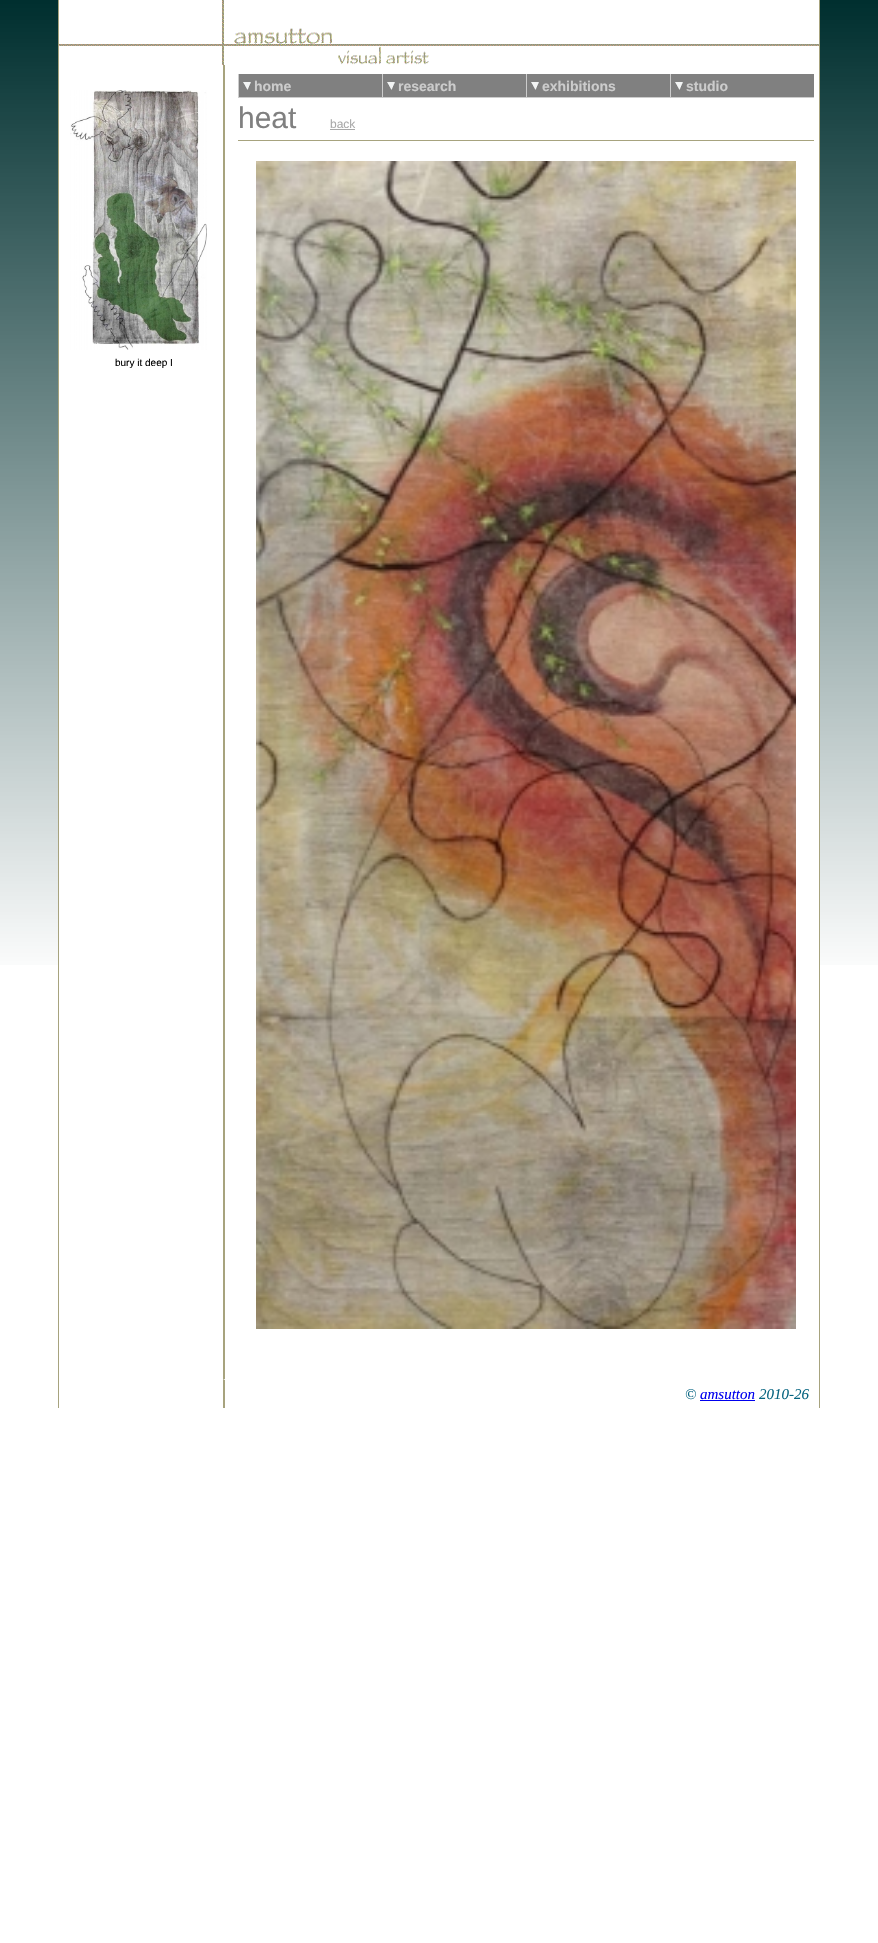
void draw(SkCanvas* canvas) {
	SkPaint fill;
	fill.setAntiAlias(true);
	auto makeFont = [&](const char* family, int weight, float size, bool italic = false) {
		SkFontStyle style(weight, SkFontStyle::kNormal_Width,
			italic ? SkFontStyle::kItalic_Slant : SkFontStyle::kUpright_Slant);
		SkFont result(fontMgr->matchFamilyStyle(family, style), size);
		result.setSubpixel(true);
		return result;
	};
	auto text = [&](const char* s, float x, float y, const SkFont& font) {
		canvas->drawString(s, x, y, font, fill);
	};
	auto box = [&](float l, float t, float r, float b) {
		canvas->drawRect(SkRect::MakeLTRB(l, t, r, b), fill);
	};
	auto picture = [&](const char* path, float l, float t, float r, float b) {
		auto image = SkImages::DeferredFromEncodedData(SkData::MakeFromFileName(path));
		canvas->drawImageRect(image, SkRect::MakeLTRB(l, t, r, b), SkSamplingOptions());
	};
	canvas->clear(0xFFFFFFFF);
	picture("image0.png", 0, 0, 878, 965);
	fill.setColor(0xFFFFFFFF);
	box(59, 65, 819, 965);
	fill.setColor(0xFFA7A37E);
	box(819, 0, 820, 1408);
	box(58, 0, 59, 1408);
	box(223, 64, 225, 1379);
	picture("image1.png", 59, 0, 819, 65);
	fill.setColor(0xFF808080);
	box(239, 74, 382, 97);
	picture("image2.png", 243, 82, 251, 90);
	fill.setColor(0xFFCCCCCC);
	box(238, 97, 814, 98);
	box(238, 74, 239, 98);
	fill.setColor(0xFF808080);
	box(383, 74, 526, 97);
	picture("image2.png", 387, 82, 395, 90);
	fill.setColor(0xFFCCCCCC);
	box(382, 74, 383, 98);
	fill.setColor(0xFF808080);
	box(527, 74, 670, 97);
	picture("image2.png", 531, 82, 539, 90);
	fill.setColor(0xFFCCCCCC);
	box(526, 74, 527, 98);
	fill.setColor(0xFF808080);
	box(671, 74, 814, 97);
	picture("image2.png", 675, 82, 683, 90);
	fill.setColor(0xFFCCCCCC);
	box(670, 74, 671, 98);
	fill.setColor(0xFFA7A37E);
	box(238, 140, 814, 141);
	fill.setColor(0xFFA9A9A9);
	box(330, 129, 355, 130);
	picture("image3.png", 256, 161, 796, 1329);
	picture("image4.png", 70, 90, 207, 350);
	fill.setColor(0xFFA7A37E);
	canvas->drawPath(SkPathBuilder().moveTo(223, 1408).lineTo(223, 1379).lineTo(225, 1380).lineTo(225, 1408).close().detach(), fill);
	fill.setColor(0xFF0000EE);
	box(700, 1400, 755, 1401);
	auto font1 = makeFont("Liberation Sans", 700, 14);
	fill.setColor(0xFFCCCCCC);
	text("home", 254, 91, font1);
	text("research", 398, 91, font1);
	text("exhibitions", 542, 91, font1);
	text("studio", 686, 91, font1);
	auto font2 = makeFont("Liberation Sans", 400, 30);
	fill.setColor(0xFF808080);
	text("heat", 238, 128, font2);
	auto font3 = makeFont("Liberation Sans", 400, 12);
	fill.setColor(0xFFA9A9A9);
	text("back", 330, 128, font3);
	auto font4 = makeFont("Liberation Sans", 400, 10);
	fill.setColor(0xFF000000);
	text("bury it deep I", 115, 366, font4);
	auto font5 = makeFont("Liberation Serif", 400, 15, true);
	fill.setColor(0xFF046380);
	text("©", 685, 1399, font5);
	fill.setColor(0xFF0000EE);
	text("amsutton", 700, 1399, font5);
	fill.setColor(0xFF046380);
	text("2010-26", 759, 1399, font5);
}
